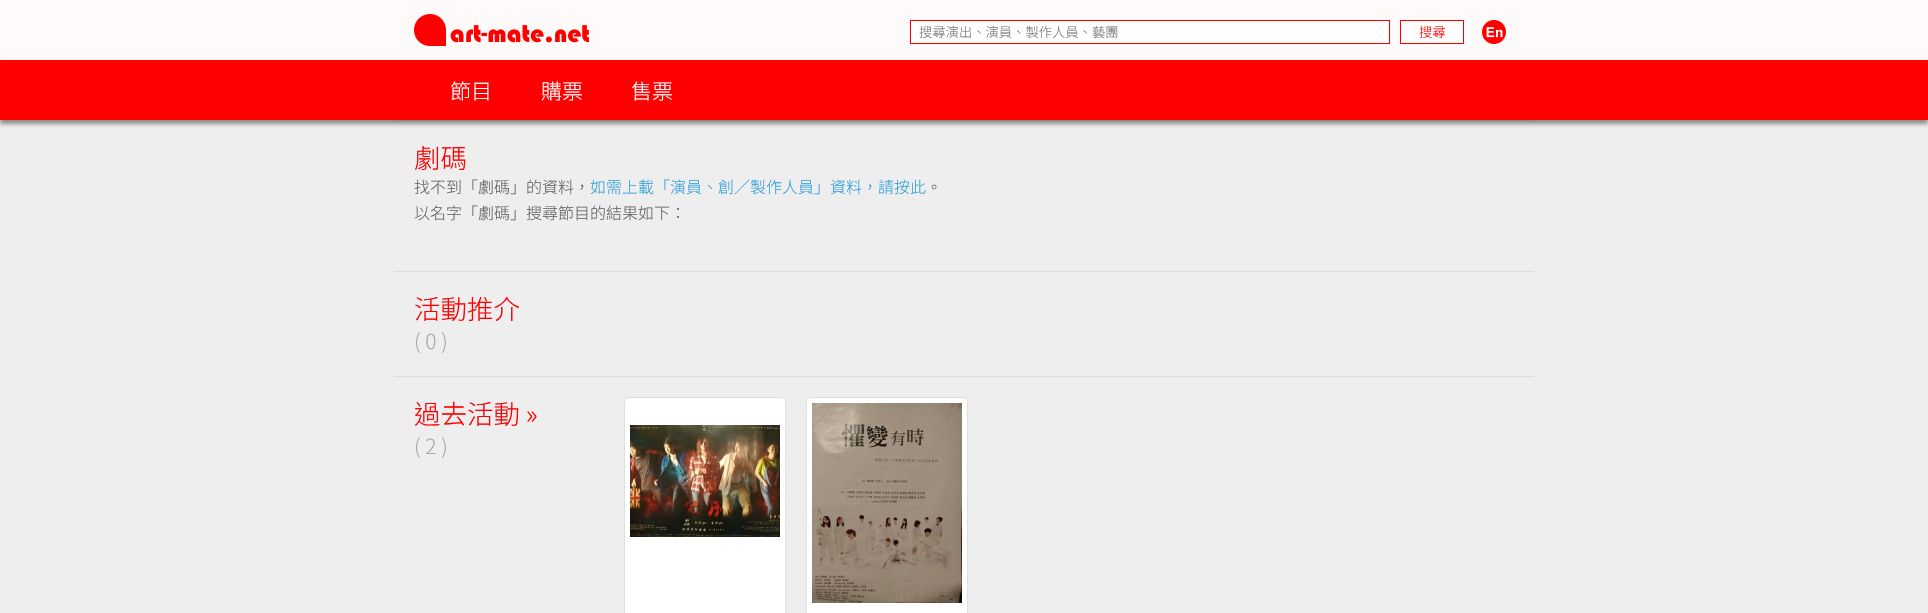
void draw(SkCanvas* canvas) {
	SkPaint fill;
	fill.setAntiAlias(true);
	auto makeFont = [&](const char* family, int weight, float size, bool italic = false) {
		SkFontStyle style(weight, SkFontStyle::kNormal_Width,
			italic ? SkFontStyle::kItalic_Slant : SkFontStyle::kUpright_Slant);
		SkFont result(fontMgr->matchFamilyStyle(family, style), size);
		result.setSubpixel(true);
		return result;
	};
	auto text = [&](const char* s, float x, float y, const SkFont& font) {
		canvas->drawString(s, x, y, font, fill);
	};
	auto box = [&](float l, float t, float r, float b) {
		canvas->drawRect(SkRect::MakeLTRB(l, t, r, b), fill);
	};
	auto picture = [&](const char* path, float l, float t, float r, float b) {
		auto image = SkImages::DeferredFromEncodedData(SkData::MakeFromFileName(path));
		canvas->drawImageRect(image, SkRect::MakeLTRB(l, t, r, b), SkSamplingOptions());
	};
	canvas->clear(0xFFEEEEEE);
	fill.setColor(0xFFFFFAFA);
	box(0, 0, 1928, 60);
	picture("image0.png", 414, 14, 589, 46);
	fill.setColor(0xFFFFFFFF);
	canvas->drawRect(SkRect::MakeLTRB(910.5f, 20.5f, 1389.5f, 43.5f), fill);
	fill.setStyle(SkPaint::kStroke_Style);
	fill.setStrokeWidth(1);
	fill.setColor(0xFFFF0000);
	canvas->drawRect(SkRect::MakeLTRB(910.5f, 20.5f, 1389.5f, 43.5f), fill);
	fill.setStyle(SkPaint::kFill_Style);
	fill.setColor(0xFFFFFFFF);
	canvas->drawRect(SkRect::MakeLTRB(1400.5f, 20.5f, 1463.5f, 43.5f), fill);
	fill.setStyle(SkPaint::kStroke_Style);
	fill.setColor(0xFFFF0000);
	canvas->drawRect(SkRect::MakeLTRB(1400.5f, 20.5f, 1463.5f, 43.5f), fill);
	picture("image1.png", 1482, 20, 1506, 44);
	fill.setStyle(SkPaint::kFill_Style);
	fill.setColor(0xFFDDDDDD);
	box(394, 120, 1534, 121);
	fill.setColor(0x66000000);
	fill.setMaskFilter(SkMaskFilter::MakeBlur(kNormal_SkBlurStyle, 2));
	canvas->drawRect(SkRect::MakeLTRB(0, 64, 1928, 124), fill);
	fill.setMaskFilter(nullptr);
	fill.setColor(0xFFFF0000);
	box(0, 60, 1928, 120);
	fill.setColor(0xFFDDDDDD);
	box(394, 271, 1534, 272);
	box(394, 376, 1534, 377);
	fill.setColor(0xFFFFFFFF);
	canvas->drawRoundRect(SkRect::MakeLTRB(624.5f, 397.5f, 785.5f, 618.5f), 4.5f, 4.5f, fill);
	fill.setStyle(SkPaint::kStroke_Style);
	fill.setColor(0xFFDFDFDF);
	canvas->drawRoundRect(SkRect::MakeLTRB(624.5f, 397.5f, 785.5f, 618.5f), 4.5f, 4.5f, fill);
	picture("image2.png", 630, 425, 780, 537);
	fill.setStyle(SkPaint::kFill_Style);
	fill.setColor(0xFFFFFFFF);
	canvas->drawRoundRect(SkRect::MakeLTRB(806.5f, 397.5f, 967.5f, 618.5f), 4.5f, 4.5f, fill);
	fill.setStyle(SkPaint::kStroke_Style);
	fill.setColor(0xFFDFDFDF);
	canvas->drawRoundRect(SkRect::MakeLTRB(806.5f, 397.5f, 967.5f, 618.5f), 4.5f, 4.5f, fill);
	picture("image3.png", 812, 403, 962, 603);
	auto font1 = makeFont("Noto Sans HK", 100, 13.3f);
	fill.setStyle(SkPaint::kFill_Style);
	fill.setColor(0xFF757575);
	text("搜尋演出、演員、製作人員、藝團", 919, 37, font1);
	fill.setColor(0xFFFF0000);
	text("搜尋", 1419, 37, font1);
	auto font2 = makeFont("Noto Sans HK", 100, 21);
	fill.setColor(0xFFFFFFFF);
	text("節目", 450, 99, font2);
	text("購票", 541, 99, font2);
	text("售票", 631, 99, font2);
	auto font3 = makeFont("Noto Sans HK", 100, 26.5f);
	fill.setColor(0xFFFF0000);
	text("劇碼", 414, 168, font3);
	auto font4 = makeFont("Noto Sans HK", 100, 16);
	fill.setColor(0xFF636363);
	text("找不到「劇碼」的資料，", 414, 193, font4);
	fill.setColor(0xFF32A0DC);
	text("如需上載「演員、創／製作人員」資料，請按此", 590, 193, font4);
	fill.setColor(0xFF636363);
	text("。", 926, 193, font4);
	text("以名字「劇碼」搜尋節目的結果如下：", 414, 219, font4);
	fill.setColor(0xFFFF0000);
	text("活動推介", 414, 319, font3);
	fill.setColor(0xFFAAAAAA);
	text("( 0 )", 414, 349, font2);
	fill.setColor(0xFFFF0000);
	text("過去活動 »", 414, 424, font3);
	fill.setColor(0xFFAAAAAA);
	text("( 2 )", 414, 454, font2);
}
